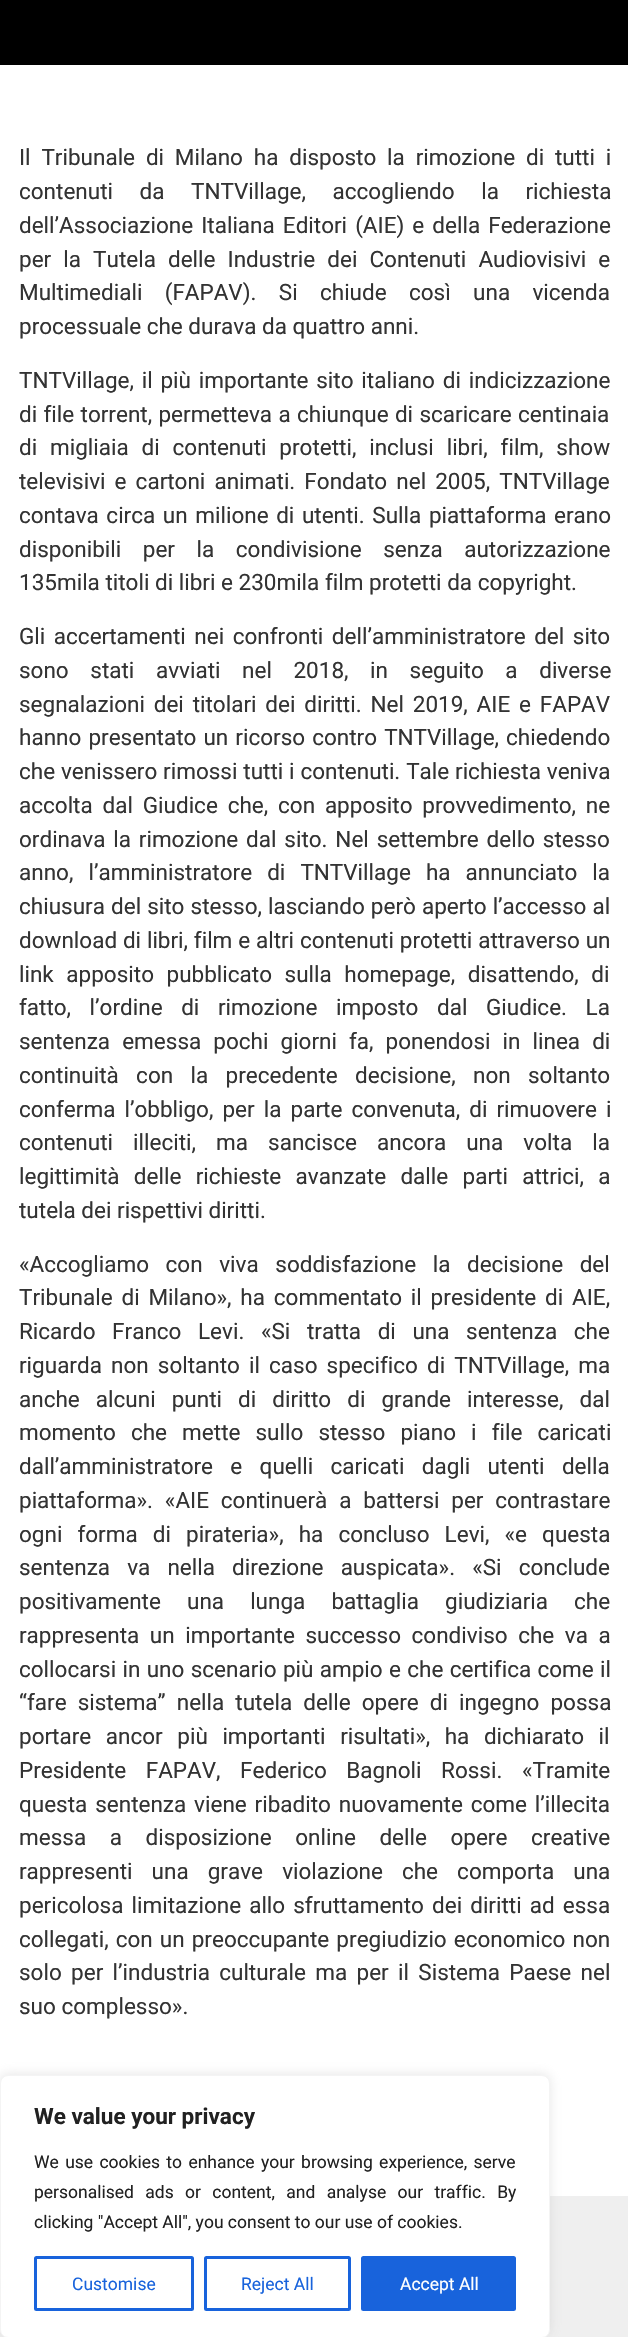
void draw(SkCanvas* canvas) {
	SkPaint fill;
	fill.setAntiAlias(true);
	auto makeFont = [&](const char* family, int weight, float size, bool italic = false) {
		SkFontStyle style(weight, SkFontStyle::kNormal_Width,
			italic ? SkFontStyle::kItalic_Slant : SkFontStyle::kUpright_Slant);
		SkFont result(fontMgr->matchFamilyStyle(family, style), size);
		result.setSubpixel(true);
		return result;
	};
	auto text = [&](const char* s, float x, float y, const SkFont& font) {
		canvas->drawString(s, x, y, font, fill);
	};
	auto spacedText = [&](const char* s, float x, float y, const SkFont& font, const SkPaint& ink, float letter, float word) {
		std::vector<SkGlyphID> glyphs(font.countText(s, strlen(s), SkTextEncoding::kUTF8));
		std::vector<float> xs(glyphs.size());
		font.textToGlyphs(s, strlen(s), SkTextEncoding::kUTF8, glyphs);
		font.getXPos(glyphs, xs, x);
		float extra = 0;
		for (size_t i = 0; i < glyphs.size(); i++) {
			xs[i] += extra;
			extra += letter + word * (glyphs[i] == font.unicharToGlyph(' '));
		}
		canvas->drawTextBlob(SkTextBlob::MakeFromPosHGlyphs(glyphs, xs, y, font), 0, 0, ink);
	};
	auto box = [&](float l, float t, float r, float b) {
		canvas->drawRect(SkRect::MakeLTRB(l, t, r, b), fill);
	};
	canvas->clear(0xFFFFFFFF);
	fill.setColor(0xFF000000);
	box(0, 0, 628, 65);
	fill.setColor(0xFFEFEFEF);
	box(0, 2196, 628, 2337);
	fill.setColor(0x4DACABAB);
	fill.setMaskFilter(SkMaskFilter::MakeBlur(kNormal_SkBlurStyle, 6));
	canvas->drawRoundRect(SkRect::MakeLTRB(0, 2074, 550, 2336), 8, 8, fill);
	fill.setMaskFilter(nullptr);
	fill.setColor(0xFFFFFFFF);
	canvas->drawRoundRect(SkRect::MakeLTRB(0.5f, 2075.5f, 549.5f, 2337.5f), 7.5f, 7.5f, fill);
	fill.setStyle(SkPaint::kStroke_Style);
	fill.setStrokeWidth(1);
	fill.setColor(0xFFF4F4F4);
	canvas->drawRoundRect(SkRect::MakeLTRB(0.5f, 2075.5f, 549.5f, 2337.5f), 7.5f, 7.5f, fill);
	fill.setStrokeWidth(3);
	fill.setColor(0xFF1863DC);
	canvas->drawRoundRect(SkRect::MakeLTRB(35.5f, 2257.5f, 192.5f, 2309.5f), 1, 1, fill);
	canvas->drawRoundRect(SkRect::MakeLTRB(205.5f, 2257.5f, 349.5f, 2309.5f), 1, 1, fill);
	fill.setStyle(SkPaint::kFill_Style);
	canvas->drawRoundRect(SkRect::MakeLTRB(362.5f, 2257.5f, 514.5f, 2309.5f), 1, 1, fill);
	fill.setStyle(SkPaint::kStroke_Style);
	canvas->drawRoundRect(SkRect::MakeLTRB(362.5f, 2257.5f, 514.5f, 2309.5f), 1, 1, fill);
	auto font1 = makeFont("Roboto", 400, 22.5f);
	fill.setStyle(SkPaint::kFill_Style);
	fill.setColor(0xFF333333);
	spacedText("Il Tribunale di Milano ha disposto la rimozione di tutti i", 19, 165, font1, fill, 0, 5.25f);
	spacedText("contenuti da TNTVillage, accogliendo la richiesta", 19, 199, font1, fill, 0, 21);
	spacedText("dell’Associazione Italiana Editori (AIE) e della Federazione", 19, 233, font1, fill, 0, 2.5f);
	spacedText("per la Tutela delle Industrie dei Contenuti Audiovisivi e", 19, 267, font1, fill, 0, 6.5f);
	spacedText("Multimediali (FAPAV). Si chiude così una vicenda", 19, 300, font1, fill, 0, 16.75f);
	text("processuale che durava da quattro anni.", 19, 334, font1);
	spacedText("TNTVillage, il più importante sito italiano di indicizzazione", 19, 388, font1, fill, 0, 2.25f);
	spacedText("di file torrent, permetteva a chiunque di scaricare centinaia", 19, 422, font1, fill, 0, 0.75f);
	spacedText("di migliaia di contenuti protetti, inclusi libri, film, show", 19, 455, font1, fill, 0, 7.25f);
	spacedText("televisivi e cartoni animati. Fondato nel 2005, TNTVillage", 19, 489, font1, fill, 0, 3.5f);
	spacedText("contava circa un milione di utenti. Sulla piattaforma erano", 19, 523, font1, fill, 0, 2);
	spacedText("disponibili per la condivisione senza autorizzazione", 19, 557, font1, fill, 0, 16);
	text("135mila titoli di libri e 230mila film protetti da copyright.", 19, 590, font1);
	spacedText("Gli accertamenti nei confronti dell’amministratore del sito", 19, 644, font1, fill, 0, 3);
	spacedText("sono stati avviati nel 2018, in seguito a diverse", 19, 678, font1, fill, 0, 16);
	spacedText("segnalazioni dei titolari dei diritti. Nel 2019, AIE e FAPAV", 19, 712, font1, fill, 0, 3.25f);
	spacedText("hanno presentato un ricorso contro TNTVillage, chiedendo", 19, 745, font1, fill, 0, 1.5f);
	spacedText("che venissero rimossi tutti i contenuti. Tale richiesta veniva", 19, 779, font1, fill, 0, 0.25f);
	spacedText("accolta dal Giudice che, con apposito provvedimento, ne", 19, 813, font1, fill, 0, 4.25f);
	spacedText("ordinava la rimozione dal sito. Nel settembre dello stesso", 19, 847, font1, fill, 0, 2.25f);
	spacedText("anno, l’amministratore di TNTVillage ha annunciato la", 19, 880, font1, fill, 0, 9.5f);
	spacedText("chiusura del sito stesso, lasciando però aperto l’accesso al", 19, 914, font1, fill, 0, 0.5f);
	spacedText("download di libri, film e altri contenuti protetti attraverso un", 19, 948, font1, fill, 0, 0.25f);
	spacedText("link apposito pubblicato sulla homepage, disattendo, di", 19, 982, font1, fill, 0, 7);
	spacedText("fatto, l’ordine di rimozione imposto dal Giudice. La", 19, 1015, font1, fill, 0, 13);
	spacedText("sentenza emessa pochi giorni fa, ponendosi in linea di", 19, 1049, font1, fill, 0, 6.5f);
	spacedText("continuità con la precedente decisione, non soltanto", 19, 1083, font1, fill, 0, 11.75f);
	spacedText("conferma l’obbligo, per la parte convenuta, di rimuovere i", 19, 1117, font1, fill, 0, 3.5f);
	spacedText("contenuti illeciti, ma sancisce ancora una volta la", 19, 1150, font1, fill, 0, 14.5f);
	spacedText("legittimità delle richieste avanzate dalle parti attrici, a", 19, 1184, font1, fill, 0, 8.75f);
	text("tutela dei rispettivi diritti.", 19, 1218, font1);
	spacedText("«Accogliamo con viva soddisfazione la decisione del", 19, 1272, font1, fill, 0, 11);
	spacedText("Tribunale di Milano», ha commentato il presidente di AIE,", 19, 1305, font1, fill, 0, 3.25f);
	spacedText("Ricardo Franco Levi. «Si tratta di una sentenza che", 19, 1339, font1, fill, 0, 11);
	spacedText("riguarda non soltanto il caso specifico di TNTVillage, ma", 19, 1373, font1, fill, 0, 3.5f);
	spacedText("anche alcuni punti di diritto di grande interesse, dal", 19, 1407, font1, fill, 0, 10.5f);
	spacedText("momento che mette sullo stesso piano i file caricati", 19, 1440, font1, fill, 0, 9.5f);
	spacedText("dall’amministratore e quelli caricati dagli utenti della", 19, 1474, font1, fill, 0, 11.75f);
	spacedText("piattaforma». «AIE continuerà a battersi per contrastare", 19, 1508, font1, fill, 0, 6.25f);
	spacedText("ogni forma di pirateria», ha concluso Levi, «e questa", 19, 1542, font1, fill, 0, 9.5f);
	spacedText("sentenza va nella direzione auspicata». «Si conclude", 19, 1575, font1, fill, 0, 11.5f);
	spacedText("positivamente una lunga battaglia giudiziaria che", 19, 1609, font1, fill, 0, 20.5f);
	spacedText("rappresenta un importante successo condiviso che va a", 19, 1643, font1, fill, 0, 5);
	spacedText("collocarsi in uno scenario più ampio e che certifica come il", 19, 1677, font1, fill, 0, 0.75f);
	spacedText("“fare sistema” nella tutela delle opere di ingegno possa", 19, 1710, font1, fill, 0, 5.5f);
	spacedText("portare ancor più importanti risultati», ha dichiarato il", 19, 1744, font1, fill, 0, 9);
	spacedText("Presidente FAPAV, Federico Bagnoli Rossi. «Tramite", 19, 1778, font1, fill, 0, 14);
	spacedText("questa sentenza viene ribadito nuovamente come l’illecita", 19, 1812, font1, fill, 0, 2.25f);
	spacedText("messa a disposizione online delle opere creative", 19, 1845, font1, fill, 0, 18);
	spacedText("rappresenti una grave violazione che comporta una", 19, 1879, font1, fill, 0, 13.5f);
	spacedText("pericolosa limitazione allo sfruttamento dei diritti ad essa", 19, 1913, font1, fill, 0, 2.5f);
	spacedText("collegati, con un preoccupante pregiudizio economico non", 19, 1947, font1, fill, 0, 1.5f);
	spacedText("solo per l’industria culturale ma per il Sistema Paese nel", 19, 1980, font1, fill, 0, 3.75f);
	text("suo complesso».", 19, 2014, font1);
	auto font2 = makeFont("Roboto", 700, 22.5f);
	fill.setColor(0xFF212121);
	text("We value your privacy", 34, 2124, font2);
	auto font3 = makeFont("Roboto", 400, 17.5f);
	spacedText("We use cookies to enhance your browsing experience, serve", 34, 2168, font3, fill, 0, 2);
	spacedText("personalised ads or content, and analyse our traffic. By", 34, 2198, font3, fill, 0, 7);
	text("clicking \"Accept All\", you consent to our use of cookies.", 34, 2228, font3);
	fill.setColor(0xFF1863DC);
	text("Customise", 72, 2290, font3);
	text("Reject All", 241, 2290, font3);
	fill.setColor(0xFFFFFFFF);
	text("Accept All", 400, 2290, font3);
}
